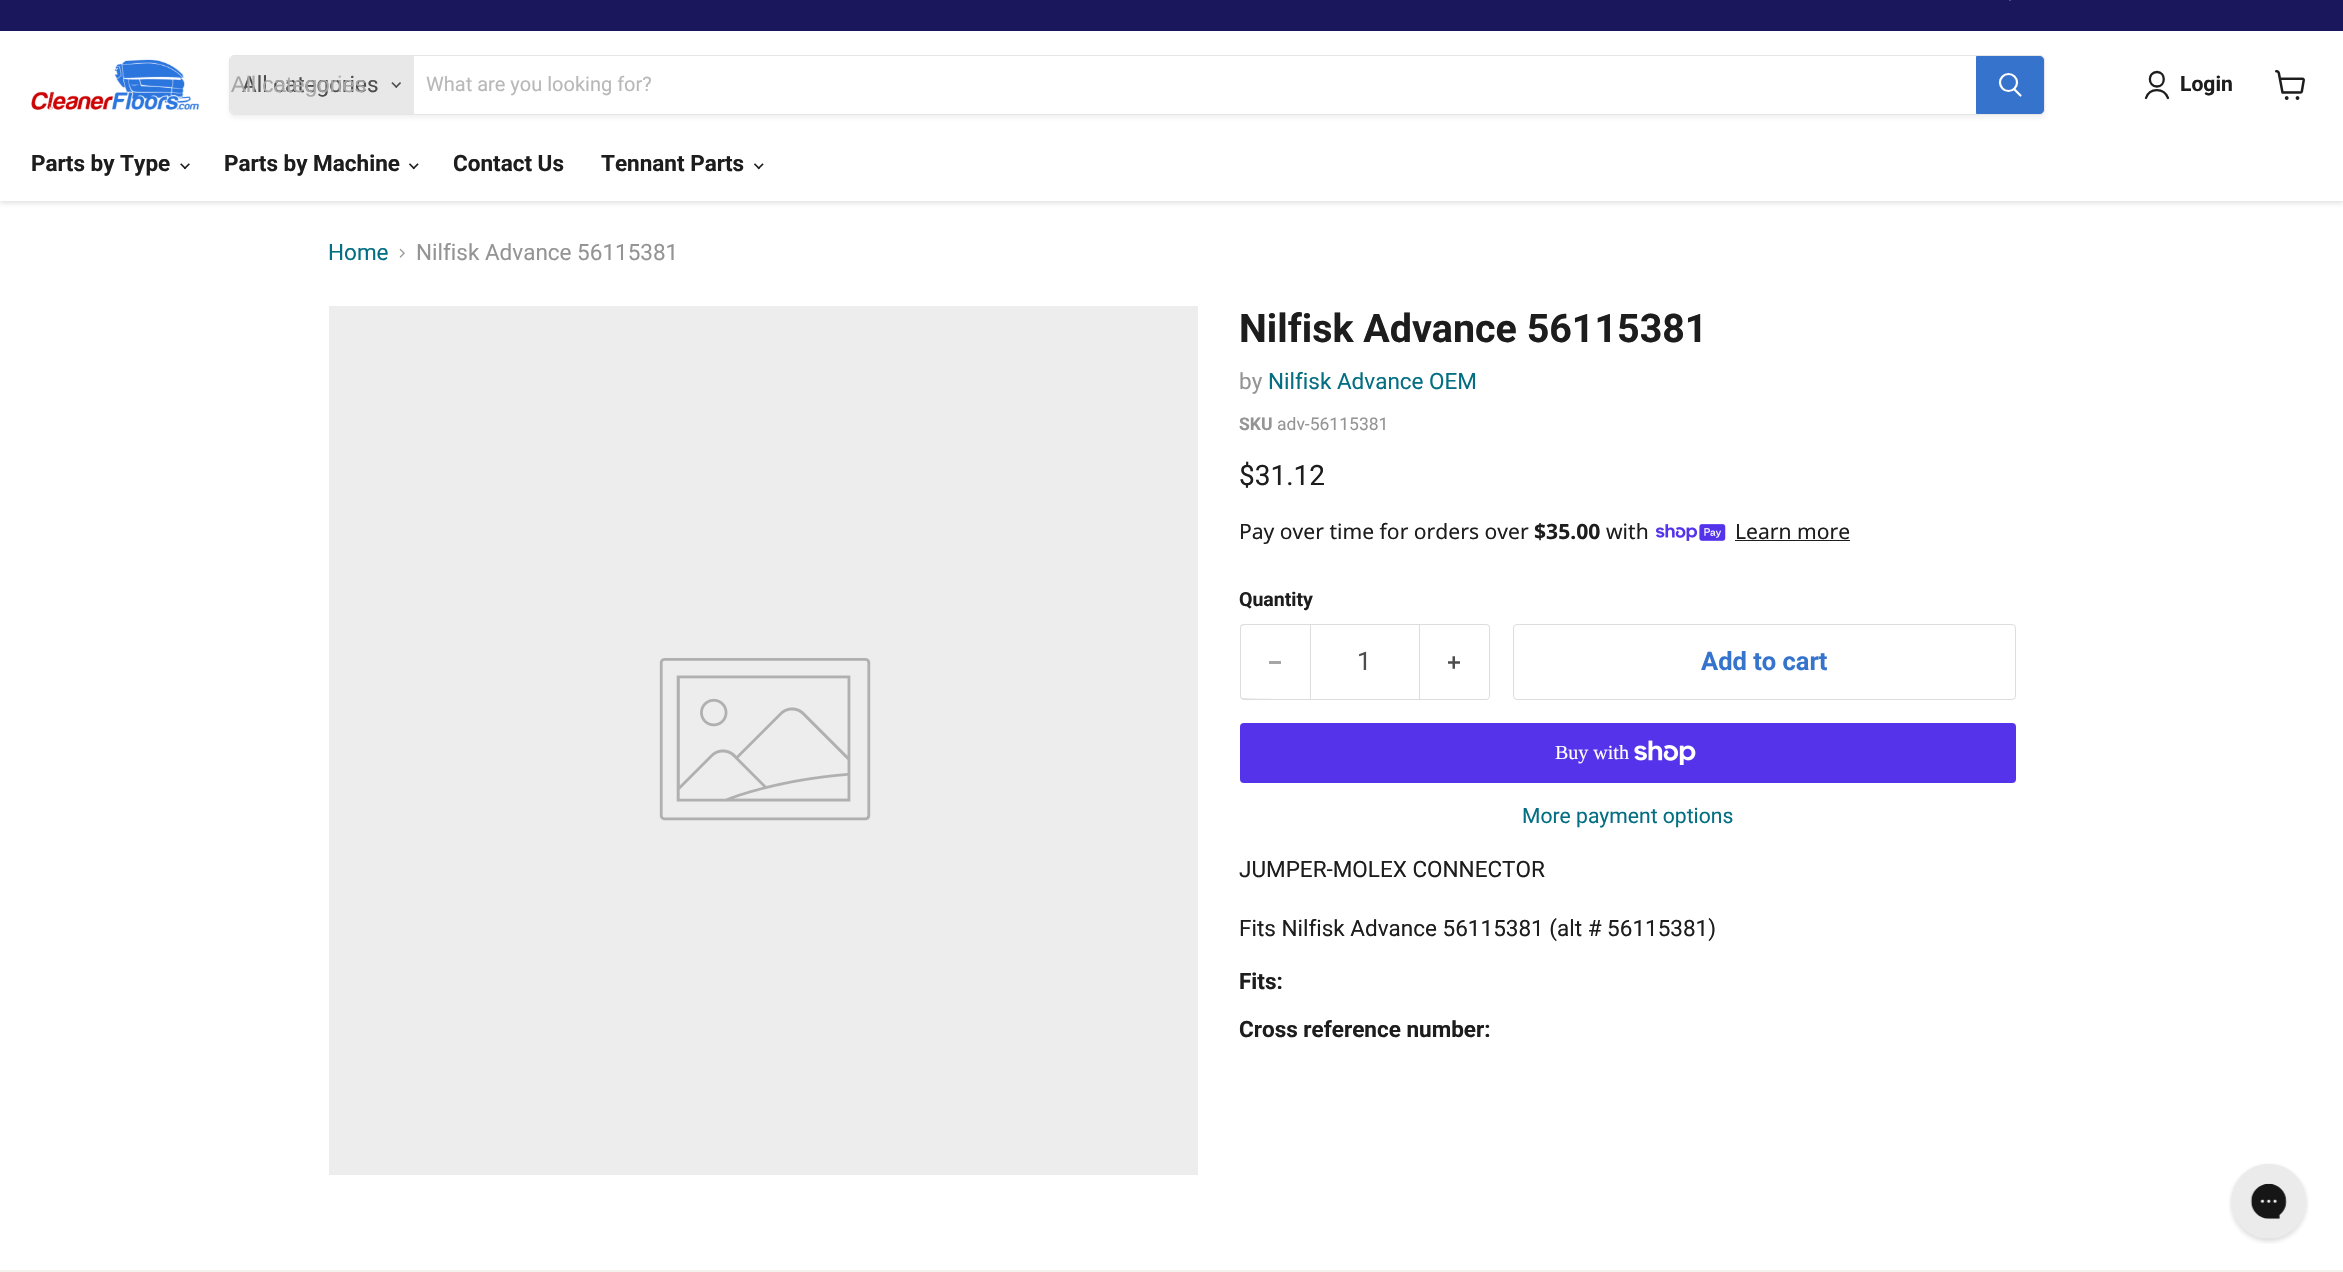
void draw(SkCanvas* canvas) {
	SkPaint fill;
	fill.setAntiAlias(true);
	auto makeFont = [&](const char* family, int weight, float size, bool italic = false) {
		SkFontStyle style(weight, SkFontStyle::kNormal_Width,
			italic ? SkFontStyle::kItalic_Slant : SkFontStyle::kUpright_Slant);
		SkFont result(fontMgr->matchFamilyStyle(family, style), size);
		result.setSubpixel(true);
		return result;
	};
	auto text = [&](const char* s, float x, float y, const SkFont& font) {
		canvas->drawString(s, x, y, font, fill);
	};
	auto box = [&](float l, float t, float r, float b) {
		canvas->drawRect(SkRect::MakeLTRB(l, t, r, b), fill);
	};
	auto roundBox = [&](float l, float t, float r, float b, float radius) {
		canvas->drawRoundRect(SkRect::MakeLTRB(l, t, r, b), radius, radius, fill);
	};
	auto picture = [&](const char* path, float l, float t, float r, float b) {
		auto image = SkImages::DeferredFromEncodedData(SkData::MakeFromFileName(path));
		canvas->drawImageRect(image, SkRect::MakeLTRB(l, t, r, b), SkSamplingOptions());
	};
	canvas->clear(0xFFFFFFFF);
	fill.setColor(0x40808080);
	fill.setMaskFilter(SkMaskFilter::MakeBlur(kNormal_SkBlurStyle, 2.5f));
	canvas->drawRect(SkRect::MakeLTRB(0, 33, 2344, 203), fill);
	fill.setMaskFilter(nullptr);
	fill.setColor(0xFF1B175D);
	box(0, 0, 2343, 31);
	fill.setColor(0xFF524F84);
	box(2009, 0, 2011, 1);
	fill.setColor(0xFFFFFFFF);
	box(0, 31, 2343, 201);
	picture("image0.png", 31, 59, 199, 110);
	canvas->save();
	canvas->clipPath(SkPathBuilder(SkPathFillType::kEvenOdd).moveTo(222, 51).lineTo(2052, 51).lineTo(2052, 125).lineTo(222, 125).close().moveTo(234, 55).lineTo(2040, 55).cubicTo(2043, 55, 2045, 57, 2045, 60).lineTo(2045, 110).cubicTo(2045, 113, 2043, 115, 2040, 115).lineTo(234, 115).cubicTo(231, 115, 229, 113, 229, 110).lineTo(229, 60).cubicTo(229, 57, 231, 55, 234, 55).close().detach(), true);
	fill.setColor(0x1C808080);
	fill.setMaskFilter(SkMaskFilter::MakeBlur(kNormal_SkBlurStyle, 2));
	canvas->drawRoundRect(SkRect::MakeLTRB(229, 58, 2045, 118), 5, 5, fill);
	fill.setMaskFilter(nullptr);
	canvas->restore();
	fill.setStyle(SkPaint::kStroke_Style);
	fill.setStrokeWidth(1);
	fill.setColor(0x33808080);
	canvas->drawRoundRect(SkRect::MakeLTRB(229.5f, 55.5f, 2044.5f, 114.5f), 4.5f, 4.5f, fill);
	fill.setStyle(SkPaint::kFill_Style);
	fill.setColor(0xFFE8E8E8);
	canvas->drawPath(SkPathBuilder().moveTo(234, 56).lineTo(414, 56).lineTo(414, 114).lineTo(234, 114).cubicTo(232, 114, 230, 112, 230, 110).lineTo(230, 60).cubicTo(230, 58, 232, 56, 234, 56).close().detach(), fill);
	picture("image1.png", 391, 82, 401, 88);
	fill.setColor(0xFF3673CC);
	canvas->drawPath(SkPathBuilder().moveTo(1976.5f, 56.5f).lineTo(2040, 56.5f).cubicTo(2042, 56.5f, 2043.5f, 58, 2043.5f, 60).lineTo(2043.5f, 110).cubicTo(2043.5f, 112, 2042, 113.5f, 2040, 113.5f).lineTo(1976.5f, 113.5f).close().detach(), fill);
	fill.setStyle(SkPaint::kStroke_Style);
	canvas->drawPath(SkPathBuilder().moveTo(1976.5f, 56.5f).lineTo(2040, 56.5f).cubicTo(2042, 56.5f, 2043.5f, 58, 2043.5f, 60).lineTo(2043.5f, 110).cubicTo(2043.5f, 112, 2042, 113.5f, 2040, 113.5f).lineTo(1976.5f, 113.5f).close().detach(), fill);
	fill.setStrokeWidth(2.2f);
	fill.setStrokeCap(SkPaint::kRound_Cap);
	fill.setColor(0xFFFFFFFF);
	canvas->drawPath(SkPathBuilder().moveTo(2020.5f, 95.5f).lineTo(2014.5f, 89.5f).detach(), fill);
	fill.setStrokeCap(SkPaint::kButt_Cap);
	canvas->drawCircle(2008.5f, 82.5f, 8.5f, fill);
	fill.setStrokeWidth(2.3f);
	fill.setStrokeCap(SkPaint::kRound_Cap);
	fill.setStrokeJoin(SkPaint::kRound_Join);
	fill.setColor(0xFF1D1D1D);
	canvas->drawPath(SkPathBuilder().moveTo(2157, 86.5f).cubicTo(2166, 86.5f, 2166, 72, 2157, 72).cubicTo(2147.5f, 72, 2147.5f, 86.5f, 2157, 86.5f).close().moveTo(2168, 98).cubicTo(2164, 87.5f, 2149.5f, 87.5f, 2146, 98).detach(), fill);
	picture("image2.png", 2275, 70, 2305, 100);
	picture("image3.png", 180, 163, 190, 170);
	picture("image4.png", 409, 163, 419, 170);
	picture("image4.png", 754, 163, 764, 170);
	picture("image5.png", 399, 248, 405, 258);
	fill.setStyle(SkPaint::kFill_Style);
	fill.setColor(0xFFEDEDED);
	box(329, 306, 1198, 1175);
	picture("image6.png", 659, 658, 871, 821);
	picture("image7.png", 1656, 524, 1726, 541);
	fill.setColor(0xFF1D1D1D);
	box(1735, 540, 1850, 541);
	fill.setColor(0xFFDDDDDD);
	canvas->drawPath(SkPathBuilder(SkPathFillType::kEvenOdd).moveTo(1244, 624).lineTo(1310, 624).lineTo(1310, 700).lineTo(1244, 700).cubicTo(1242, 700, 1240, 698, 1240, 696).lineTo(1240, 628).cubicTo(1240, 625, 1242, 624, 1244, 624).close().moveTo(1244, 625).lineTo(1310, 625).lineTo(1310, 699).cubicTo(1303, 699, 1244, 699, 1242, 698).lineTo(1241, 696).lineTo(1241, 627).lineTo(1242, 626).close().detach(), fill);
	fill.setColor(0xFFA6A6A6);
	box(1269, 661, 1281, 664);
	fill.setStyle(SkPaint::kStroke_Style);
	fill.setStrokeWidth(1);
	fill.setStrokeCap(SkPaint::kButt_Cap);
	fill.setStrokeJoin(SkPaint::kMiter_Join);
	fill.setColor(0xFFDDDDDD);
	canvas->drawRect(SkRect::MakeLTRB(1310.5f, 624.5f, 1419.5f, 699.5f), fill);
	fill.setStyle(SkPaint::kFill_Style);
	canvas->drawPath(SkPathBuilder(SkPathFillType::kEvenOdd).moveTo(1420, 624).lineTo(1486, 624).cubicTo(1488, 624, 1490, 625, 1490, 628).lineTo(1490, 696).cubicTo(1490, 698, 1488, 700, 1486, 700).lineTo(1420, 700).close().moveTo(1420, 625).lineTo(1486, 625).cubicTo(1488, 625, 1489, 626, 1489, 628).lineTo(1489, 696).cubicTo(1489, 698, 1488, 699, 1486, 699).lineTo(1420, 699).close().detach(), fill);
	picture("image8.png", 1448, 656, 1460, 669);
	fill.setStyle(SkPaint::kStroke_Style);
	canvas->drawRoundRect(SkRect::MakeLTRB(1513.5f, 624.5f, 2015.5f, 699.5f), 3.5f, 3.5f, fill);
	fill.setStyle(SkPaint::kFill_Style);
	fill.setColor(0xFF5433EB);
	roundBox(1240, 723, 2016, 783, 4);
	picture("image9.png", 1634, 740, 1696, 765);
	picture("image10.png", 2229, 1163, 2309, 1244);
	fill.setColor(0xFFF5F3ED);
	box(0, 1270, 2343, 1272);
	auto font1 = makeFont("Roboto", 400, 22.5f);
	fill.setColor(0xFF4D4D4D);
	text("All categories", 242, 92, font1);
	auto font2 = makeFont("Liberation Sans", 400, 22.5f);
	fill.setColor(0xFFA7A7A7);
	text("All categories", 231, 92, font2);
	auto font3 = makeFont("Roboto", 400, 20);
	fill.setColor(0xFFB8B8B8);
	text("What are you looking for?", 426, 91, font3);
	auto font4 = makeFont("Roboto", 700, 21.1f);
	fill.setColor(0xFF1D1D1D);
	text("Login", 2180, 91, font4);
	auto font5 = makeFont("Roboto", 700, 22.5f);
	text("Parts by Type", 31, 171, font5);
	text("Parts by Machine", 224, 171, font5);
	text("Contact Us", 453, 171, font5);
	text("Tennant Parts", 601, 171, font5);
	fill.setColor(0xFF046E82);
	text("Home", 328, 260, font1);
	fill.setColor(0xFF949494);
	text("Nilfisk Advance 56115381", 416, 260, font1);
	auto font6 = makeFont("Roboto", 700, 39.4f);
	fill.setColor(0xFF1D1D1D);
	text("Nilfisk Advance 56115381", 1239, 342, font6);
	fill.setColor(0xFF949494);
	text("by", 1239, 389, font1);
	fill.setColor(0xFF046E82);
	text("Nilfisk Advance OEM", 1268, 389, font1);
	auto font7 = makeFont("Roboto", 700, 17.5f);
	fill.setColor(0xFF949494);
	text("SKU", 1239, 430, font7);
	auto font8 = makeFont("Roboto", 400, 17.5f);
	text("adv-56115381", 1277, 430, font8);
	auto font9 = makeFont("Roboto", 400, 28);
	fill.setColor(0xFF1D1D1D);
	text("$31.12", 1239, 485, font9);
	auto font10 = makeFont("Noto Sans", 400, 21.1f);
	text("Pay over time for orders over", 1239, 539, font10);
	auto font11 = makeFont("Noto Sans", 700, 21.1f);
	text("$35.00", 1534, 539, font11);
	text("with", 1606, 539, font10);
	text("Learn more", 1735, 539, font10);
	auto font12 = makeFont("Roboto", 700, 19.5f);
	text("Quantity", 1239, 606, font12);
	auto font13 = makeFont("Roboto", 400, 25.5f);
	fill.setColor(0xFF4D4D4D);
	text("1", 1357, 670, font13);
	auto font14 = makeFont("Roboto", 700, 25.5f);
	fill.setColor(0xFF3673CC);
	text("Add to cart", 1701, 670, font14);
	auto font15 = makeFont("Liberation Serif", 400, 20);
	fill.setColor(0xFFFFFFFF);
	text("Buy with", 1555, 759, font15);
	auto font16 = makeFont("Roboto", 400, 21.1f);
	fill.setColor(0xFF046E82);
	text("More payment options", 1522, 823, font16);
	fill.setColor(0xFF1D1D1D);
	text("JUMPER-MOLEX CONNECTOR", 1239, 877, font1);
	text("Fits Nilfisk Advance 56115381 (alt # 56115381)", 1239, 936, font1);
	text("Fits:", 1239, 989, font5);
	text("Cross reference number:", 1239, 1037, font5);
}
